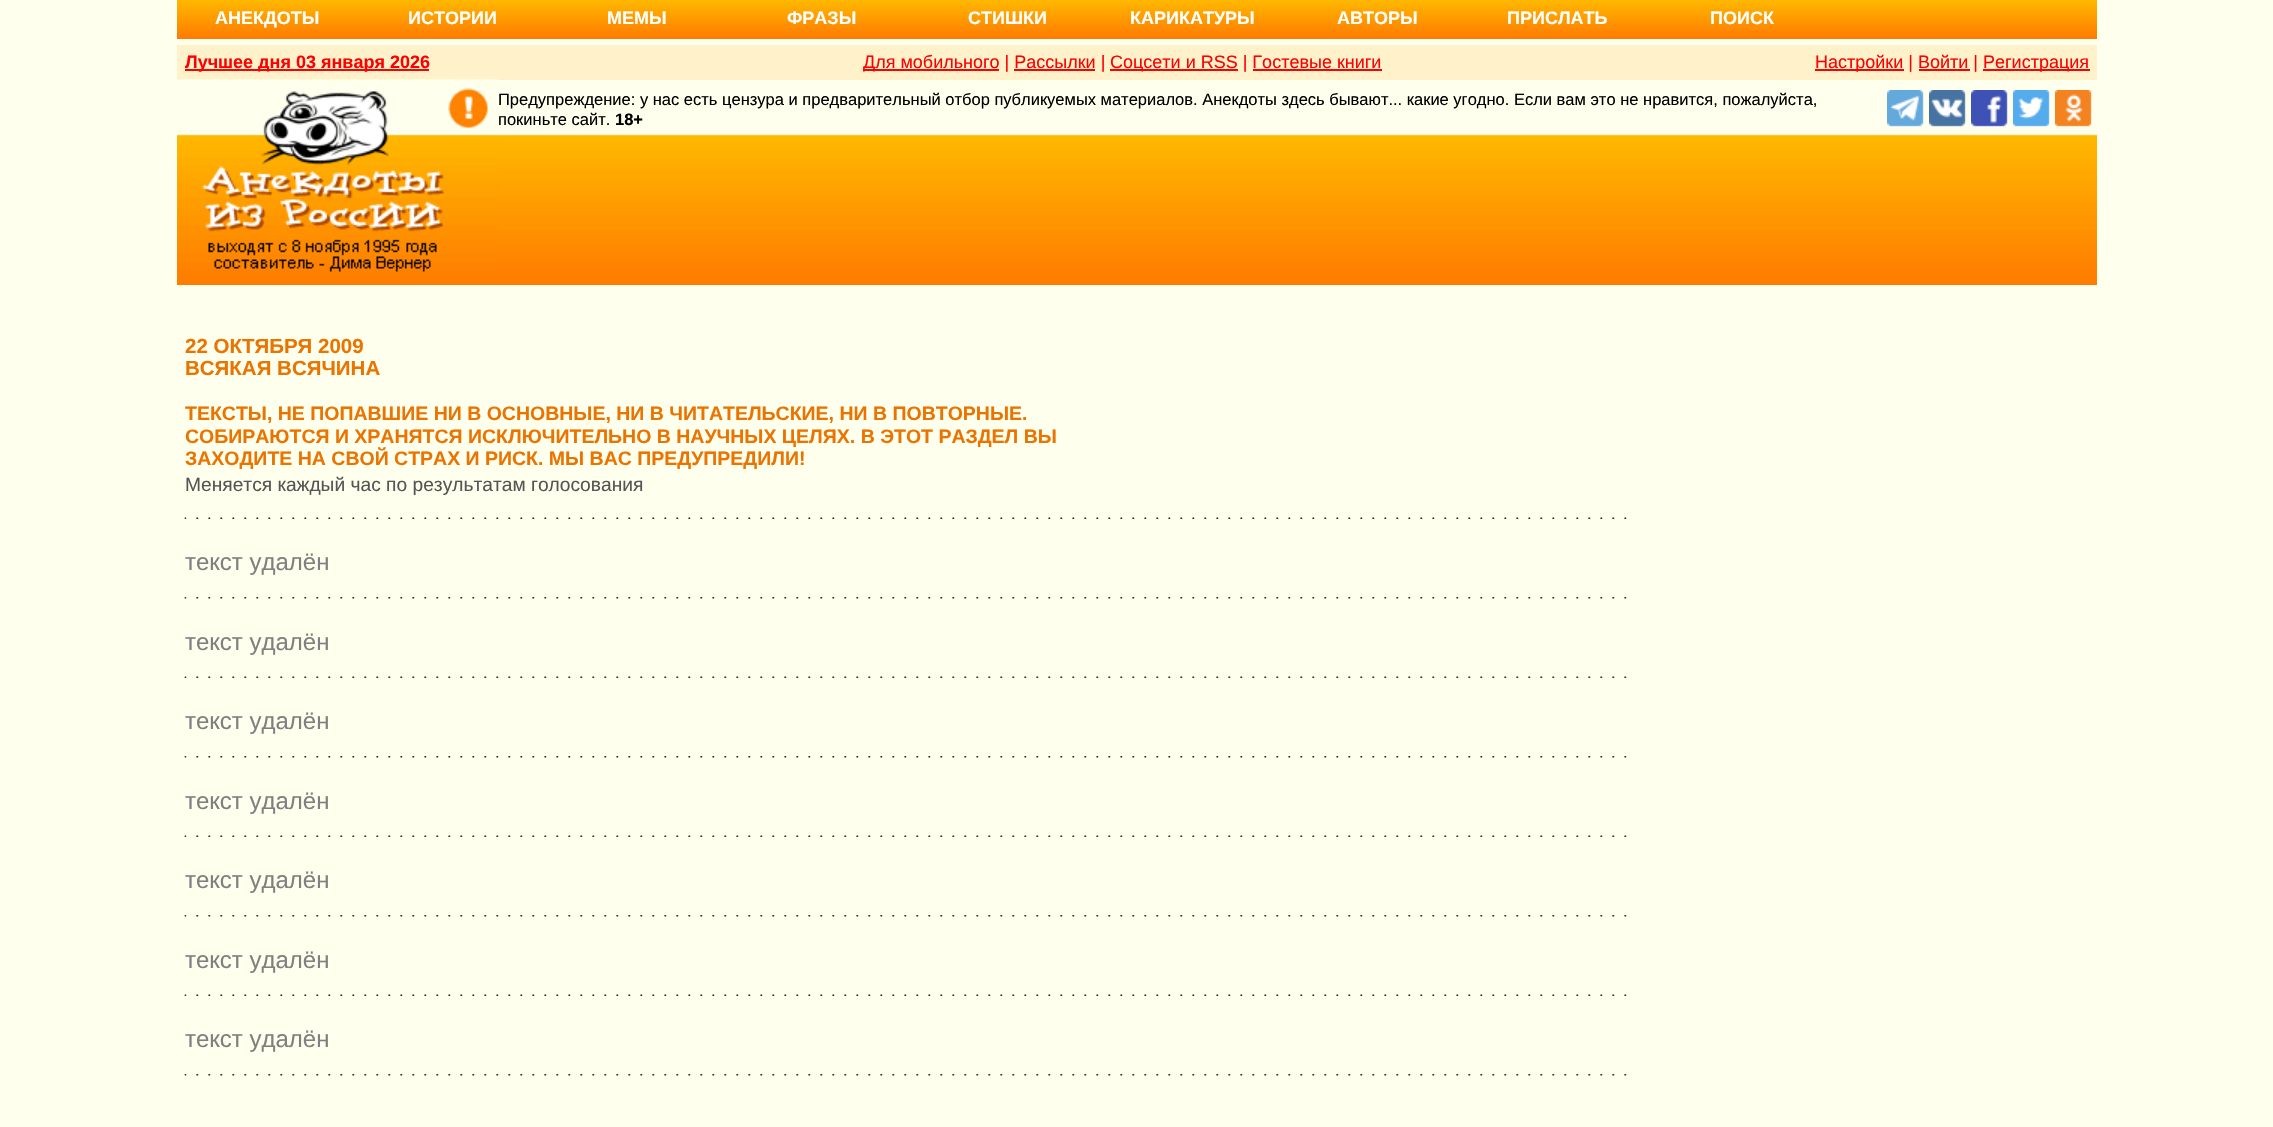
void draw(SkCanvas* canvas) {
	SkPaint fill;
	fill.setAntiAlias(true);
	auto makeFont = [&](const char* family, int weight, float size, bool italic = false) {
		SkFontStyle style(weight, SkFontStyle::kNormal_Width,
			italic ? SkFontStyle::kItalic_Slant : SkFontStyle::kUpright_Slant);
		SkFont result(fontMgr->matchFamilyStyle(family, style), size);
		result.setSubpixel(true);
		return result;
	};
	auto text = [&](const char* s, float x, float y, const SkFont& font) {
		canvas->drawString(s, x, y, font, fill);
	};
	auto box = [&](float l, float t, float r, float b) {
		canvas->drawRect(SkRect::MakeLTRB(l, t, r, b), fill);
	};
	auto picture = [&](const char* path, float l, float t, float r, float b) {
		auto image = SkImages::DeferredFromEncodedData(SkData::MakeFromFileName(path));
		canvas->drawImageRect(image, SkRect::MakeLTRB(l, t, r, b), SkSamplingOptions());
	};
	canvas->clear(0xFFFFFFEE);
	{
		const SkColor colors[] = {0xFFFFB800, 0xFFFF7A00};
		const float stops[] = {0, 1};
		const SkPoint ends[] = {{1137, 0}, {1137, 39}};
		fill.setShader(SkGradientShader::MakeLinear(ends, colors, stops, 2, SkTileMode::kClamp));
		fill.setAlpha(255);
	}
	box(177, 0, 2097, 39);
	fill.setShader(nullptr);
	fill.setColor(0xFFFFF2CA);
	box(177, 45, 2097, 80);
	fill.setColor(0xFFFF0000);
	box(185, 69, 429, 71);
	box(863, 69, 999, 71);
	box(1110, 69, 1238, 71);
	box(1815, 69, 1904, 71);
	box(1983, 69, 2090, 71);
	box(1919, 69, 1970, 71);
	box(1014, 69, 1095, 71);
	box(1253, 69, 1382, 71);
	picture("image0.png", 177, 134, 2097, 285);
	picture("image1.png", 177, 79, 498, 272);
	picture("image2.png", 1887, 90, 1924, 127);
	picture("image3.png", 1929, 90, 1966, 127);
	picture("image4.png", 1971, 90, 2008, 127);
	picture("image5.png", 2013, 90, 2050, 127);
	picture("image6.png", 2055, 90, 2092, 127);
	picture("image7.png", 184, 517, 1627, 519);
	picture("image8.png", 184, 597, 1627, 599);
	picture("image7.png", 184, 676, 1627, 678);
	picture("image8.png", 184, 756, 1627, 758);
	picture("image7.png", 184, 835, 1627, 837);
	picture("image8.png", 184, 915, 1627, 917);
	picture("image7.png", 184, 994, 1627, 996);
	picture("image8.png", 184, 1074, 1627, 1076);
	auto font1 = makeFont("Liberation Sans", 700, 18);
	fill.setColor(0xFFFFFFFF);
	text("АНЕКДОТЫ", 215, 24, font1);
	text("ИСТОРИИ", 408, 24, font1);
	text("МЕМЫ", 607, 24, font1);
	text("ФРАЗЫ", 787, 24, font1);
	text("СТИШКИ", 968, 24, font1);
	text("КАРИКАТУРЫ", 1130, 24, font1);
	text("АВТОРЫ", 1337, 24, font1);
	text("ПРИСЛАТЬ", 1507, 24, font1);
	text("ПОИСК", 1710, 24, font1);
	fill.setColor(0xFFFF0000);
	text("Лучшее дня 03 января 2026", 185, 68, font1);
	auto font2 = makeFont("Liberation Sans", 400, 18);
	text("Для мобильного | Рассылки |", 863, 68, font2);
	text("Соцсети и RSS | Гостевые книги", 1110, 68, font2);
	text("Настройки | Войти |", 1815, 68, font2);
	text("Регистрация", 1983, 68, font2);
	auto font3 = makeFont("Liberation Sans", 400, 16.5f);
	fill.setColor(0xFF000000);
	text("Предупреждение: у нас есть цензура и предварительный отбор публикуемых материалов. Анекдоты здесь бывают... какие угодно. Если вам это не нравится, пожалуйста,", 498, 105, font3);
	text("покиньте сайт.", 498, 125, font3);
	auto font4 = makeFont("Liberation Sans", 700, 16.5f);
	text("18+", 615, 125, font4);
	auto font5 = makeFont("Liberation Sans", 700, 20.5f);
	fill.setColor(0xFFEB7400);
	text("22 ОКТЯБРЯ 2009", 185, 353, font5);
	text("ВСЯКАЯ ВСЯЧИНА", 185, 375, font5);
	auto font6 = makeFont("Liberation Sans", 700, 19.5f);
	text("ТЕКСТЫ, НЕ ПОПАВШИЕ НИ В ОСНОВНЫЕ, НИ В ЧИТАТЕЛЬСКИЕ, НИ В ПОВТОРНЫЕ.", 185, 420, font6);
	text("СОБИРАЮТСЯ И ХРАНЯТСЯ ИСКЛЮЧИТЕЛЬНО В НАУЧНЫХ ЦЕЛЯХ. В ЭТОТ РАЗДЕЛ ВЫ", 185, 443, font6);
	text("ЗАХОДИТЕ НА СВОЙ СТРАХ И РИСК. МЫ ВАС ПРЕДУПРЕДИЛИ!", 185, 465, font6);
	auto font7 = makeFont("Liberation Sans", 400, 19.2f);
	fill.setColor(0xFF555555);
	text("Меняется каждый час по результатам голосования", 185, 491, font7);
	auto font8 = makeFont("Liberation Sans", 400, 24);
	fill.setColor(0xFF808080);
	text("текст удалён", 185, 570, font8);
	text("текст удалён", 185, 650, font8);
	text("текст удалён", 185, 729, font8);
	text("текст удалён", 185, 809, font8);
	text("текст удалён", 185, 888, font8);
	text("текст удалён", 185, 968, font8);
	text("текст удалён", 185, 1047, font8);
}
